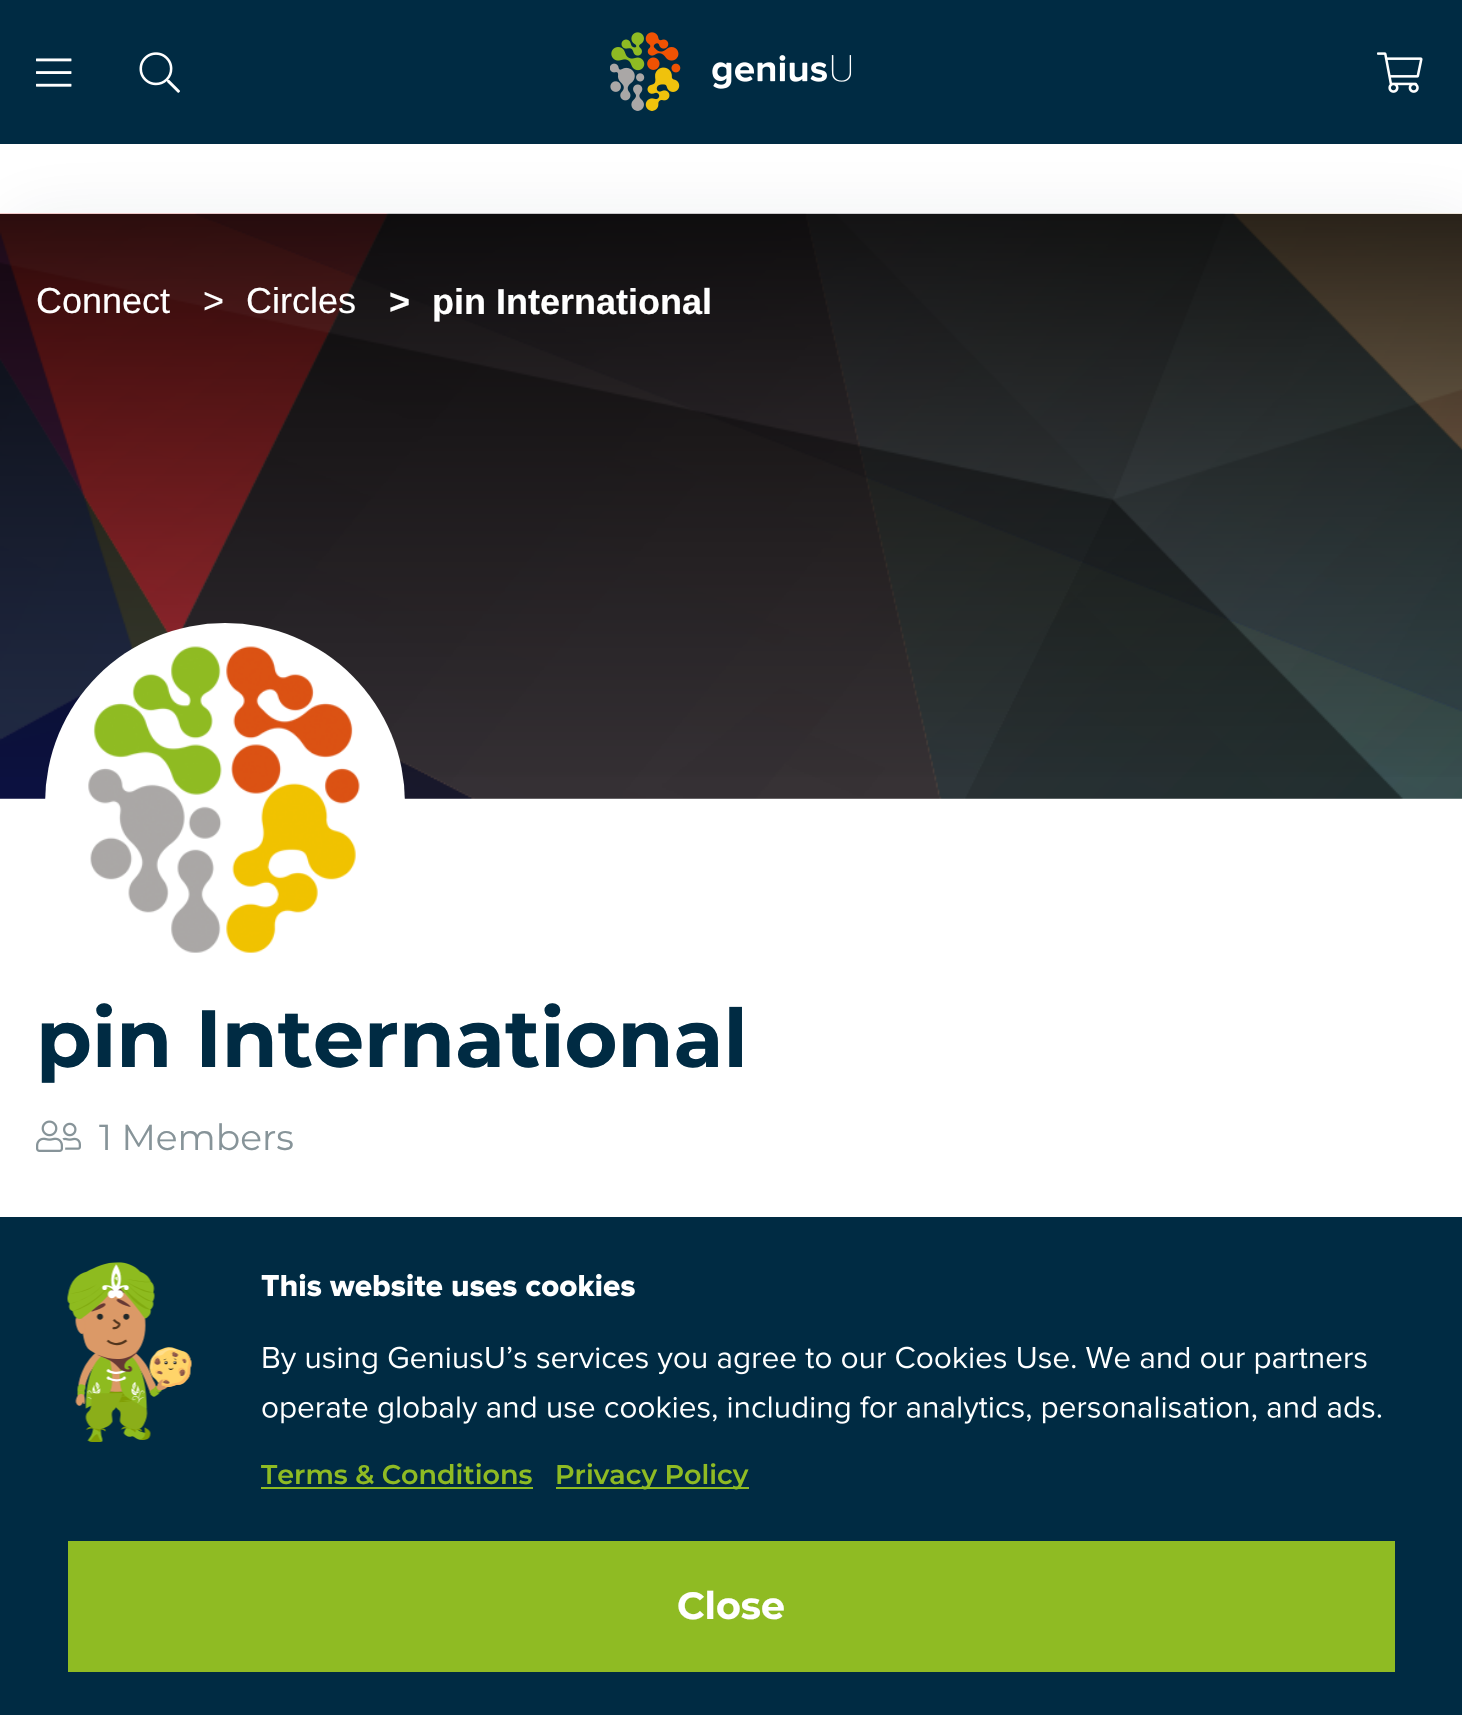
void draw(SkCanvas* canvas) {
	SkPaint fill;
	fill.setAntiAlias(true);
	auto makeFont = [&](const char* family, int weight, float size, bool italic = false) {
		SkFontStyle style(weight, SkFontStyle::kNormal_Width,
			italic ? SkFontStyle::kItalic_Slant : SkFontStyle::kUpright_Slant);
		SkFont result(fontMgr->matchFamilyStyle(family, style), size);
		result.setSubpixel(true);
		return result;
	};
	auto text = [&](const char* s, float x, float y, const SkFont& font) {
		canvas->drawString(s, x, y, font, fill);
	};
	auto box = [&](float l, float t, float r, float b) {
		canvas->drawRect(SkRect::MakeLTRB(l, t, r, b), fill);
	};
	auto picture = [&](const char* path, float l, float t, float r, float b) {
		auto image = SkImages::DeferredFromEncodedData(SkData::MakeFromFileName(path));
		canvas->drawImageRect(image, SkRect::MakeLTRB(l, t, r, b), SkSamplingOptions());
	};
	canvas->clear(0xFFFFFFFF);
	fill.setColor(0x17222D3F);
	fill.setMaskFilter(SkMaskFilter::MakeBlur(kNormal_SkBlurStyle, 38));
	canvas->drawRoundRect(SkRect::MakeLTRB(11, 223, 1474, 1582), 9, 9, fill);
	fill.setMaskFilter(nullptr);
	fill.setColor(0xFF002B43);
	box(0, 0, 1462, 144);
	picture("image0.png", 36, 58, 72, 87);
	picture("image1.png", 139, 52, 180, 93);
	picture("image2.png", 610, 32, 852, 111);
	picture("image3.png", 1377, 52, 1423, 93);
	fill.setColor(0xFFFFFFFF);
	box(0, 798, 1462, 1217);
	picture("image4.png", 0, 213, 1462, 799);
	{
		const SkColor colors[] = {0xCC000000, 0x00000000};
		const float stops[] = {0, 1};
		const SkPoint ends[] = {{731, 214}, {731, 799}};
		fill.setShader(SkGradientShader::MakeLinear(ends, colors, stops, 2, SkTileMode::kClamp));
		fill.setAlpha(255);
	}
	box(0, 214, 1462, 777);
	fill.setShader(nullptr);
	fill.setColor(0xFFFFFFFF);
	canvas->drawCircle(225, 803, 180, fill);
	picture("image5.png", 88, 646, 360, 953);
	picture("image6.png", 36, 1120, 81, 1152);
	fill.setColor(0xFF002B43);
	box(0, 1217, 1462, 1715);
	picture("image7.png", 67, 1262, 192, 1442);
	picture("image8.png", 261, 1273, 635, 1297);
	picture("image9.png", 263, 1346, 1367, 1375);
	picture("image10.png", 262, 1396, 1382, 1424);
	fill.setColor(0xFF8FBB23);
	box(261, 1487, 533, 1489);
	box(556, 1487, 749, 1489);
	box(68, 1541, 1395, 1672);
	auto font1 = makeFont("Liberation Sans", 400, 36);
	fill.setColor(0xFFFFFFFF);
	text("Connect", 36, 313, font1);
	text(">", 203, 313, font1);
	text("Circles", 246, 313, font1);
	auto font2 = makeFont("Liberation Sans", 700, 36);
	text(">", 389, 314, font2);
	text("pin International", 432, 314, font2);
	auto font3 = makeFont("Montserrat", 700, 81);
	fill.setColor(0xFF002B43);
	text("pin International", 36, 1067, font3);
	auto font4 = makeFont("Montserrat", 400, 36);
	fill.setColor(0xFF879499);
	text("1 Members", 99, 1150, font4);
	auto font5 = makeFont("Montserrat", 600, 27);
	fill.setColor(0xFF8FBB23);
	text("Terms & Conditions", 261, 1484, font5);
	text("Privacy Policy", 555, 1484, font5);
	auto font6 = makeFont("Montserrat", 700, 38);
	fill.setColor(0xFFFFFFFF);
	text("Close", 677, 1619, font6);
}
